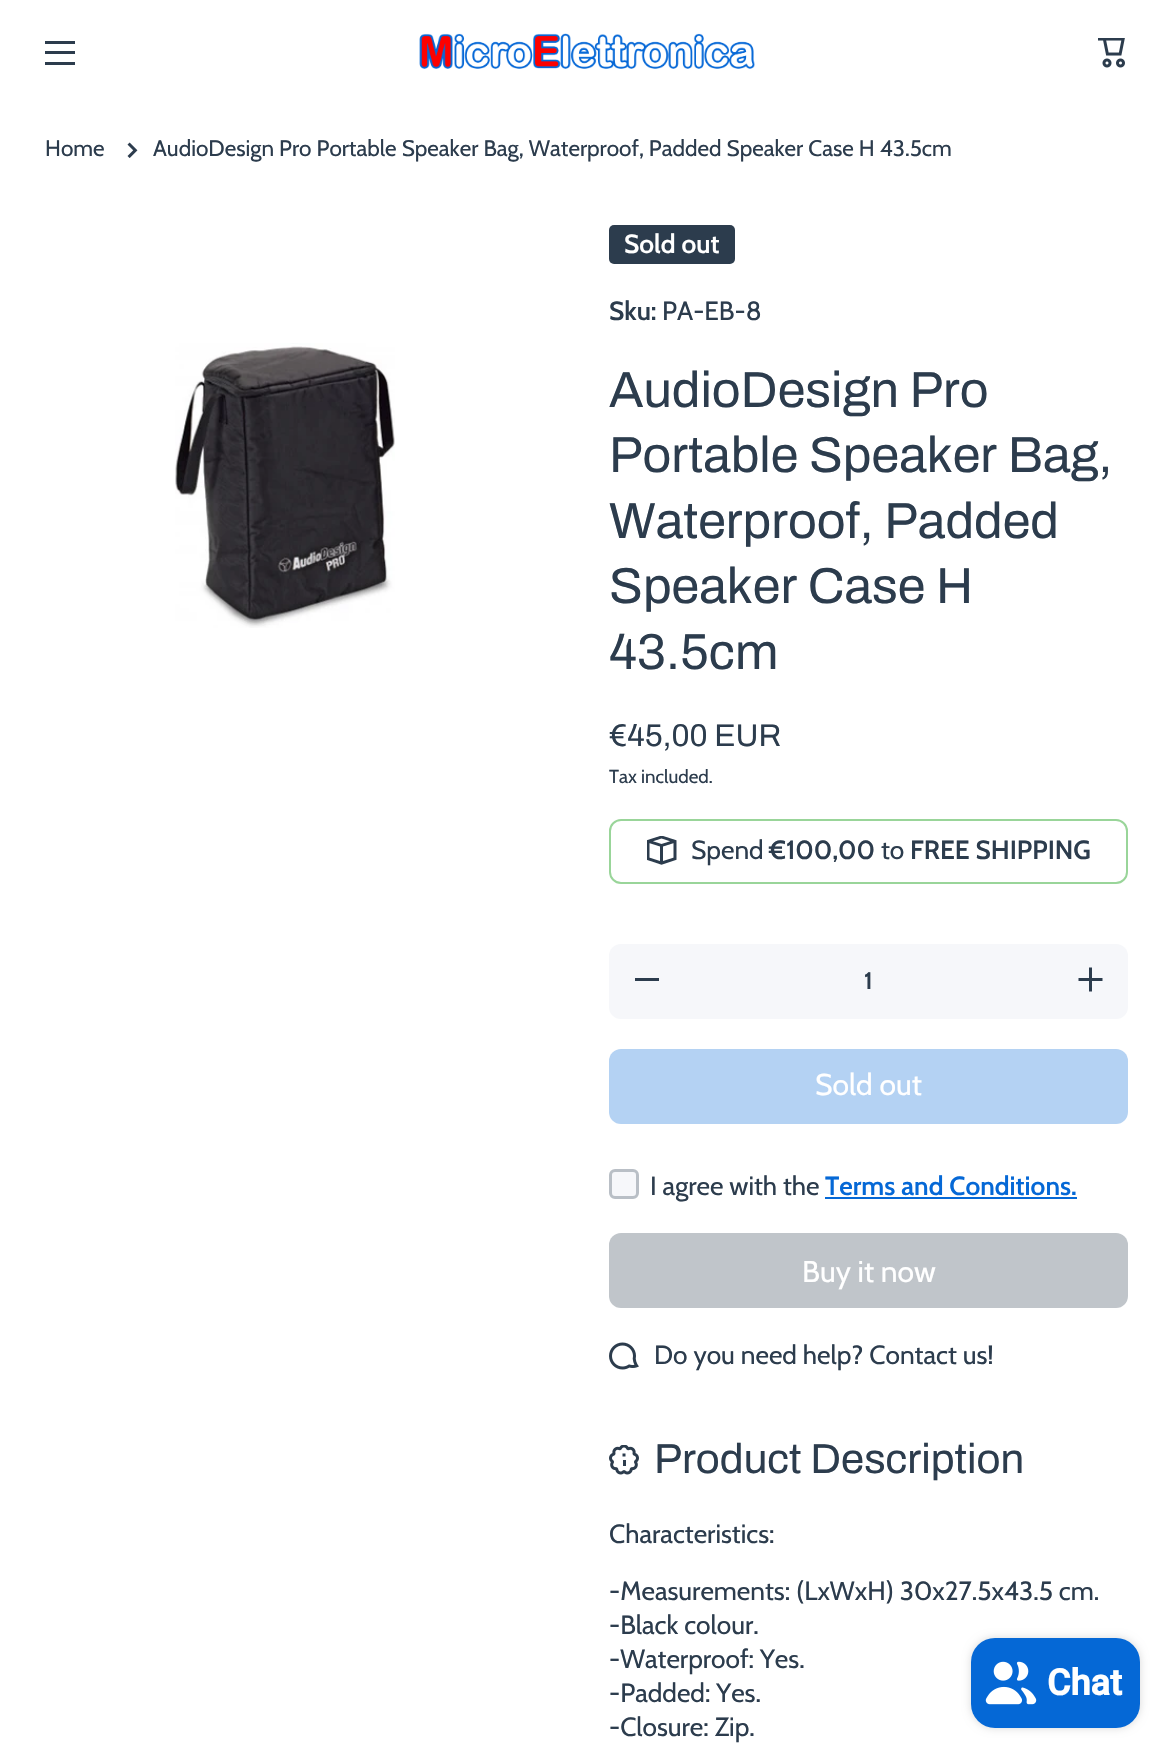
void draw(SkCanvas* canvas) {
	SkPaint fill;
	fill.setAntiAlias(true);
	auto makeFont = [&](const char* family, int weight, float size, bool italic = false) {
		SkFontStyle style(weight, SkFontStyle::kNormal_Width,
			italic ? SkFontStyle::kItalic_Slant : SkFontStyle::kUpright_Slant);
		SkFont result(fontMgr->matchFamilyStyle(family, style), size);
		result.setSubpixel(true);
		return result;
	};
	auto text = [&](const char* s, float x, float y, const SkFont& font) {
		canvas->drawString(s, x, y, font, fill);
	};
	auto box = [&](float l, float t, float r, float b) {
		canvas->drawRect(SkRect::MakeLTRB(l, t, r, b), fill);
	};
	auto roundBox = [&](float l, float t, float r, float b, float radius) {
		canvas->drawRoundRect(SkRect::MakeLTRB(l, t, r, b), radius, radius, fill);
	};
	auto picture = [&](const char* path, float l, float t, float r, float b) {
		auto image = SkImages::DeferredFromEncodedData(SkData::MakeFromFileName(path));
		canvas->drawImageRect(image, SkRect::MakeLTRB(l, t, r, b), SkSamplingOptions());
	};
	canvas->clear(0xFFFFFFFF);
	fill.setColor(0xFF2C3C4D);
	box(45, 41, 75, 44);
	box(45, 51, 75, 54);
	box(45, 62, 75, 65);
	picture("image0.png", 419, 33, 755, 69);
	picture("image1.png", 1098, 38, 1125, 68);
	picture("image2.png", 127, 142, 138, 158);
	picture("image3.png", 175, 343, 395, 628);
	roundBox(609, 225, 735, 264, 5);
	fill.setStyle(SkPaint::kStroke_Style);
	fill.setStrokeWidth(2);
	fill.setColor(0xFF99D599);
	canvas->drawRoundRect(SkRect::MakeLTRB(610, 820, 1127, 883), 11, 11, fill);
	picture("image4.png", 647, 836, 677, 865);
	fill.setStyle(SkPaint::kFill_Style);
	fill.setColor(0xFFF6F7FA);
	roundBox(609, 944, 1128, 1019, 12);
	fill.setColor(0xFF2C3C4D);
	box(635, 978, 659, 981);
	picture("image5.png", 1078, 967, 1103, 992);
	fill.setColor(0xFFB4D2F3);
	roundBox(609, 1049, 1128, 1124, 12);
	fill.setColor(0xFFF6F7FA);
	canvas->drawRoundRect(SkRect::MakeLTRB(610.5f, 1170.5f, 637.5f, 1197.5f), 4.5f, 4.5f, fill);
	fill.setStyle(SkPaint::kStroke_Style);
	fill.setStrokeWidth(3);
	fill.setColor(0xFFB9BFC6);
	canvas->drawRoundRect(SkRect::MakeLTRB(610.5f, 1170.5f, 637.5f, 1197.5f), 4.5f, 4.5f, fill);
	fill.setStyle(SkPaint::kFill_Style);
	fill.setColor(0xFF0568D6);
	box(825, 1197, 1077, 1199);
	fill.setColor(0xFFC0C5CA);
	roundBox(609, 1233, 1128, 1308, 12);
	picture("image6.png", 609, 1342, 639, 1370);
	picture("image7.png", 609, 1445, 639, 1475);
	fill.setColor(0x26000000);
	fill.setMaskFilter(SkMaskFilter::MakeBlur(kNormal_SkBlurStyle, 4));
	canvas->drawRoundRect(SkRect::MakeLTRB(971, 1638, 1140, 1728), 24, 24, fill);
	fill.setMaskFilter(nullptr);
	fill.setColor(0xFF0568D6);
	roundBox(971, 1638, 1140, 1728, 24);
	picture("image8.png", 985, 1661, 1037, 1705);
	auto font1 = makeFont("Cabin", 400, 22.5f);
	fill.setColor(0xFF2C3C4D);
	text("Home", 45, 156, font1);
	text("AudioDesign Pro Portable Speaker Bag, Waterproof, Padded Speaker Case H 43.5cm", 153, 156, font1);
	auto font2 = makeFont("Cabin", 600, 26.25f);
	fill.setColor(0xFFFFFFFF);
	text("Sold out", 624, 253, font2);
	fill.setColor(0xFF2C3C4D);
	text("Sku:", 609, 320, font2);
	auto font3 = makeFont("Cabin", 400, 26.25f);
	text("PA-EB-8", 662, 320, font3);
	auto font4 = makeFont("Archivo", 400, 50.5f);
	text("AudioDesign Pro", 609, 407, font4);
	text("Portable Speaker Bag,", 609, 472, font4);
	text("Waterproof, Padded", 609, 538, font4);
	text("Speaker Case H", 609, 603, font4);
	text("43.5cm", 609, 669, font4);
	auto font5 = makeFont("Archivo", 400, 31.5f);
	text("€45,00 EUR", 609, 746, font5);
	auto font6 = makeFont("Cabin", 400, 18.75f);
	text("Tax included.", 609, 783, font6);
	text("Spend", 691, 859, font3);
	text("€100,00", 769, 859, font2);
	text("to", 881, 859, font3);
	text("FREE SHIPPING", 910, 859, font2);
	auto font7 = makeFont("Cabin", 600, 24);
	text("1", 864, 989, font7);
	auto font8 = makeFont("Cabin", 400, 30);
	fill.setColor(0xFFFFFFFF);
	text("Sold out", 815, 1095, font8);
	fill.setColor(0xFF2C3C4D);
	text("I agree with the", 650, 1195, font3);
	fill.setColor(0xFF0568D6);
	text("Terms and Conditions.", 825, 1195, font2);
	fill.setColor(0xFFFFFFFF);
	text("Buy it now", 802, 1282, font8);
	fill.setColor(0xFF2C3C4D);
	text("Do you need help? Contact us!", 654, 1364, font3);
	auto font9 = makeFont("Archivo", 400, 42);
	text("Product Description", 654, 1473, font9);
	text("Characteristics:", 609, 1543, font3);
	text("-Measurements: (LxWxH) 30x27.5x43.5 cm.", 609, 1600, font3);
	text("-Black colour.", 609, 1634, font3);
	text("-Waterproof: Yes.", 609, 1668, font3);
	text("-Padded: Yes.", 609, 1702, font3);
	text("-Closure: Zip.", 609, 1736, font3);
	auto font10 = makeFont("Roboto", 700, 36);
	fill.setColor(0xFFFFFFFF);
	text("Chat", 1047, 1695, font10);
}
